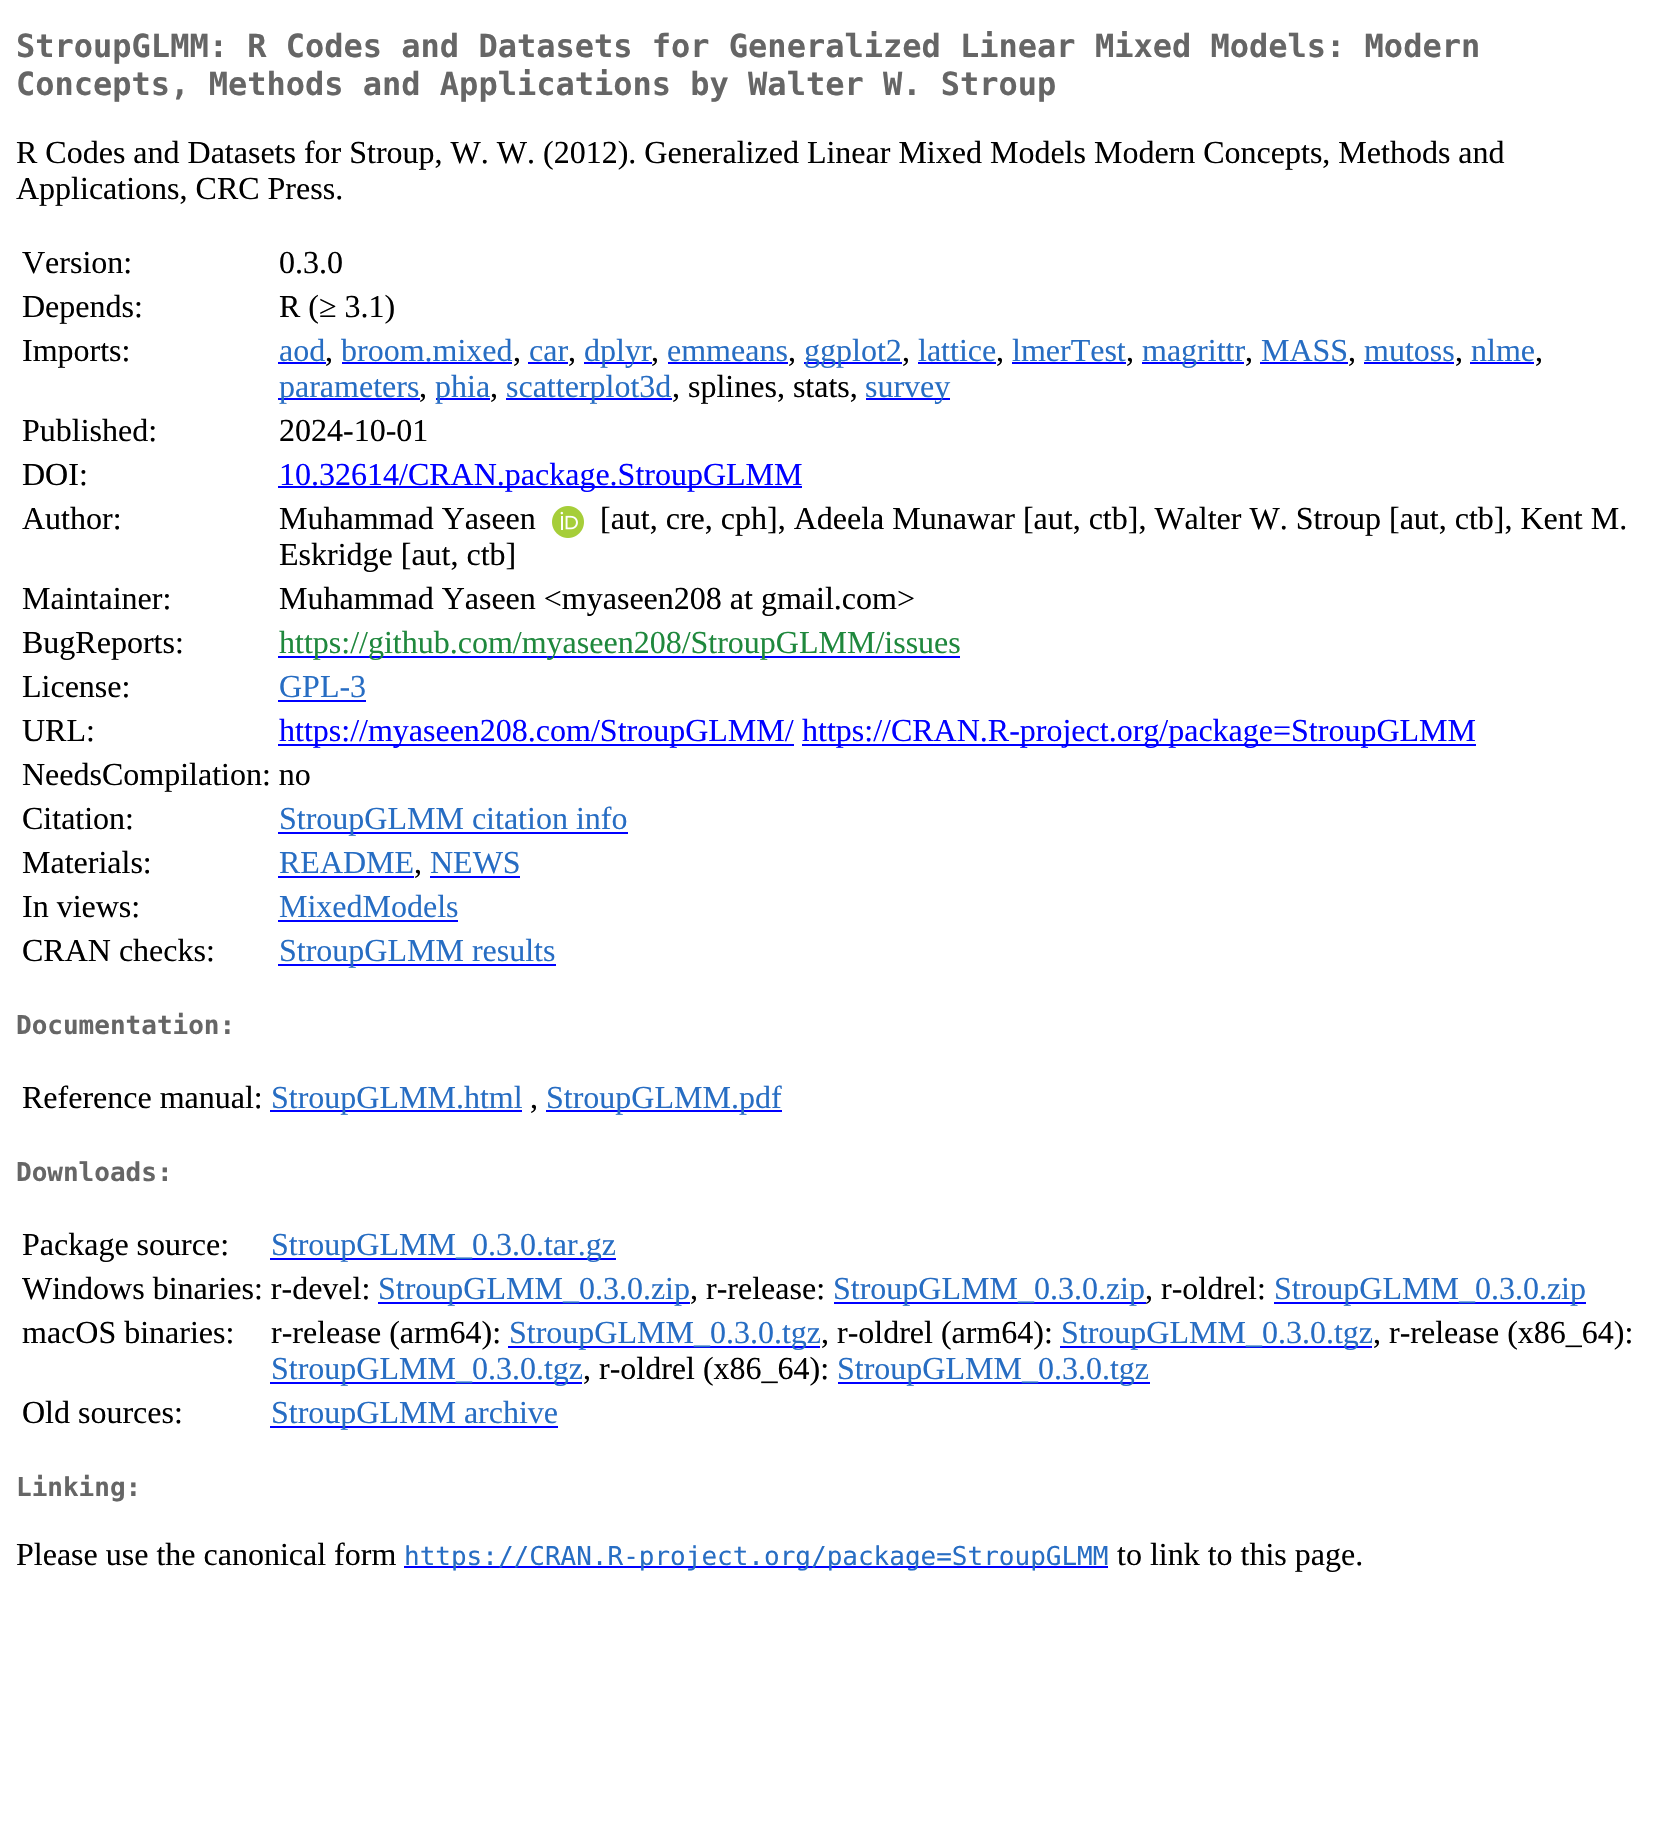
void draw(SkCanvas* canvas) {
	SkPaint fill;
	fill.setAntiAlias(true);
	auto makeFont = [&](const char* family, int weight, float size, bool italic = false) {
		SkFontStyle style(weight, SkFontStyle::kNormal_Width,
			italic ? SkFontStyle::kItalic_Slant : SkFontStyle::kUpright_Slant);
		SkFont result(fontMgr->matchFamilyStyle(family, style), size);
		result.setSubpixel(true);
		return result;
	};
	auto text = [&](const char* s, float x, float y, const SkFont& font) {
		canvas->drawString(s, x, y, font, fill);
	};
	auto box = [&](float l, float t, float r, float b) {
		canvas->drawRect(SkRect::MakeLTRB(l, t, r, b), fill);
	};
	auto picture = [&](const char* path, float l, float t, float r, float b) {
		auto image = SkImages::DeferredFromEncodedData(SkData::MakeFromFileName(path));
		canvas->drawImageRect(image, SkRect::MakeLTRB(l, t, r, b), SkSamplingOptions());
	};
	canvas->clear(0xFFFFFFFF);
	fill.setColor(0xFF0000FF);
	box(278, 362, 326, 364);
	box(342, 362, 512, 364);
	box(528, 362, 568, 364);
	box(584, 362, 652, 364);
	box(668, 362, 788, 364);
	box(804, 362, 902, 364);
	box(918, 362, 996, 364);
	box(1012, 362, 1126, 364);
	box(1142, 362, 1244, 364);
	box(1260, 362, 1348, 364);
	box(1364, 362, 1454, 364);
	box(1470, 362, 1534, 364);
	box(278, 398, 420, 400);
	box(436, 398, 490, 400);
	box(506, 398, 672, 400);
	box(866, 398, 950, 400);
	box(278, 486, 802, 488);
	picture("image0.png", 552, 506, 584, 538);
	box(278, 656, 960, 658);
	box(278, 700, 366, 702);
	box(278, 744, 794, 746);
	box(802, 744, 1476, 746);
	box(278, 832, 628, 834);
	box(278, 876, 414, 878);
	box(430, 876, 520, 878);
	box(278, 920, 458, 922);
	box(278, 964, 556, 966);
	box(270, 1110, 522, 1112);
	box(546, 1110, 782, 1112);
	box(270, 1258, 616, 1260);
	box(378, 1302, 690, 1304);
	box(834, 1302, 1146, 1304);
	box(1274, 1302, 1586, 1304);
	box(508, 1346, 820, 1348);
	box(1060, 1346, 1372, 1348);
	box(270, 1382, 582, 1384);
	box(838, 1382, 1150, 1384);
	box(270, 1426, 558, 1428);
	box(404, 1566, 1108, 1568);
	auto font1 = makeFont("DejaVu Sans Mono", 700, 32);
	fill.setColor(0xFF666666);
	text("StroupGLMM: R Codes and Datasets for Generalized Linear Mixed Models: Modern", 16, 57, font1);
	text("Concepts, Methods and Applications by Walter W. Stroup", 16, 95, font1);
	auto font2 = makeFont("Liberation Serif", 400, 32);
	fill.setColor(0xFF000000);
	text("R Codes and Datasets for Stroup, W. W. (2012). Generalized Linear Mixed Models Modern Concepts, Methods and", 16, 163, font2);
	text("Applications, CRC Press.", 16, 199, font2);
	text("Version:", 22, 273, font2);
	text("0.3.0", 279, 273, font2);
	text("Depends:", 22, 317, font2);
	text("R (≥ 3.1)", 279, 317, font2);
	text("Imports:", 22, 361, font2);
	fill.setColor(0xFF276DC3);
	text("aod", 279, 361, font2);
	fill.setColor(0xFF000000);
	text(",", 325, 361, font2);
	fill.setColor(0xFF276DC3);
	text("broom.mixed", 341, 361, font2);
	fill.setColor(0xFF000000);
	text(",", 513, 361, font2);
	fill.setColor(0xFF276DC3);
	text("car", 529, 361, font2);
	fill.setColor(0xFF000000);
	text(",", 568, 361, font2);
	fill.setColor(0xFF276DC3);
	text("dplyr", 584, 361, font2);
	fill.setColor(0xFF000000);
	text(",", 651, 361, font2);
	fill.setColor(0xFF276DC3);
	text("emmeans", 667, 361, font2);
	fill.setColor(0xFF000000);
	text(",", 788, 361, font2);
	fill.setColor(0xFF276DC3);
	text("ggplot2", 804, 361, font2);
	fill.setColor(0xFF000000);
	text(",", 902, 361, font2);
	fill.setColor(0xFF276DC3);
	text("lattice", 918, 361, font2);
	fill.setColor(0xFF000000);
	text(",", 996, 361, font2);
	fill.setColor(0xFF276DC3);
	text("lmerTest", 1012, 361, font2);
	fill.setColor(0xFF000000);
	text(",", 1126, 361, font2);
	fill.setColor(0xFF276DC3);
	text("magrittr", 1142, 361, font2);
	fill.setColor(0xFF000000);
	text(",", 1245, 361, font2);
	fill.setColor(0xFF276DC3);
	text("MASS", 1261, 361, font2);
	fill.setColor(0xFF000000);
	text(",", 1348, 361, font2);
	fill.setColor(0xFF276DC3);
	text("mutoss", 1364, 361, font2);
	fill.setColor(0xFF000000);
	text(",", 1455, 361, font2);
	fill.setColor(0xFF276DC3);
	text("nlme", 1471, 361, font2);
	fill.setColor(0xFF000000);
	text(",", 1535, 361, font2);
	fill.setColor(0xFF276DC3);
	text("parameters", 279, 397, font2);
	fill.setColor(0xFF000000);
	text(",", 419, 397, font2);
	fill.setColor(0xFF276DC3);
	text("phia", 435, 397, font2);
	fill.setColor(0xFF000000);
	text(",", 490, 397, font2);
	fill.setColor(0xFF276DC3);
	text("scatterplot3d", 506, 397, font2);
	fill.setColor(0xFF000000);
	text(", splines, stats,", 672, 397, font2);
	fill.setColor(0xFF276DC3);
	text("survey", 865, 397, font2);
	fill.setColor(0xFF000000);
	text("Published:", 22, 441, font2);
	text("2024-10-01", 279, 441, font2);
	text("DOI:", 22, 485, font2);
	fill.setColor(0xFF0000FF);
	text("10.32614/CRAN.package.StroupGLMM", 279, 485, font2);
	fill.setColor(0xFF000000);
	text("Author:", 22, 529, font2);
	text("Muhammad Yaseen", 279, 529, font2);
	text("[aut, cre, cph], Adeela Munawar [aut, ctb], Walter W. Stroup [aut, ctb], Kent M.", 600, 529, font2);
	text("Eskridge [aut, ctb]", 279, 565, font2);
	text("Maintainer:", 22, 609, font2);
	text("Muhammad Yaseen <myaseen208 at gmail.com>", 279, 609, font2);
	text("BugReports:", 22, 653, font2);
	fill.setColor(0xFF1F883D);
	text("https://github.com/myaseen208/StroupGLMM/issues", 279, 653, font2);
	fill.setColor(0xFF000000);
	text("License:", 22, 697, font2);
	fill.setColor(0xFF276DC3);
	text("GPL-3", 279, 697, font2);
	fill.setColor(0xFF000000);
	text("URL:", 22, 741, font2);
	fill.setColor(0xFF0000FF);
	text("https://myaseen208.com/StroupGLMM/", 279, 741, font2);
	text("https://CRAN.R-project.org/package=StroupGLMM", 802, 741, font2);
	fill.setColor(0xFF000000);
	text("NeedsCompilation: no", 22, 785, font2);
	text("Citation:", 22, 829, font2);
	fill.setColor(0xFF276DC3);
	text("StroupGLMM citation info", 279, 829, font2);
	fill.setColor(0xFF000000);
	text("Materials:", 22, 873, font2);
	fill.setColor(0xFF276DC3);
	text("README", 279, 873, font2);
	fill.setColor(0xFF000000);
	text(",", 414, 873, font2);
	fill.setColor(0xFF276DC3);
	text("NEWS", 430, 873, font2);
	fill.setColor(0xFF000000);
	text("In views:", 22, 917, font2);
	fill.setColor(0xFF276DC3);
	text("MixedModels", 279, 917, font2);
	fill.setColor(0xFF000000);
	text("CRAN checks:", 22, 961, font2);
	fill.setColor(0xFF276DC3);
	text("StroupGLMM results", 279, 961, font2);
	auto font3 = makeFont("DejaVu Sans Mono", 700, 26);
	fill.setColor(0xFF666666);
	text("Documentation:", 16, 1034, font3);
	fill.setColor(0xFF000000);
	text("Reference manual:", 22, 1108, font2);
	fill.setColor(0xFF276DC3);
	text("StroupGLMM.html", 271, 1108, font2);
	fill.setColor(0xFF000000);
	text(",", 530, 1108, font2);
	fill.setColor(0xFF276DC3);
	text("StroupGLMM.pdf", 546, 1108, font2);
	fill.setColor(0xFF666666);
	text("Downloads:", 16, 1181, font3);
	fill.setColor(0xFF000000);
	text("Package source:", 22, 1255, font2);
	fill.setColor(0xFF276DC3);
	text("StroupGLMM_0.3.0.tar.gz", 271, 1255, font2);
	fill.setColor(0xFF000000);
	text("Windows binaries: r-devel:", 22, 1299, font2);
	fill.setColor(0xFF276DC3);
	text("StroupGLMM_0.3.0.zip", 378, 1299, font2);
	fill.setColor(0xFF000000);
	text(", r-release:", 690, 1299, font2);
	fill.setColor(0xFF276DC3);
	text("StroupGLMM_0.3.0.zip", 833, 1299, font2);
	fill.setColor(0xFF000000);
	text(", r-oldrel:", 1145, 1299, font2);
	fill.setColor(0xFF276DC3);
	text("StroupGLMM_0.3.0.zip", 1274, 1299, font2);
	fill.setColor(0xFF000000);
	text("macOS binaries:", 22, 1343, font2);
	text("r-release (arm64):", 271, 1343, font2);
	fill.setColor(0xFF276DC3);
	text("StroupGLMM_0.3.0.tgz", 509, 1343, font2);
	fill.setColor(0xFF000000);
	text(", r-oldrel (arm64):", 821, 1343, font2);
	fill.setColor(0xFF276DC3);
	text("StroupGLMM_0.3.0.tgz", 1061, 1343, font2);
	fill.setColor(0xFF000000);
	text(", r-release (x86_64):", 1373, 1343, font2);
	fill.setColor(0xFF276DC3);
	text("StroupGLMM_0.3.0.tgz", 271, 1379, font2);
	fill.setColor(0xFF000000);
	text(", r-oldrel (x86_64):", 583, 1379, font2);
	fill.setColor(0xFF276DC3);
	text("StroupGLMM_0.3.0.tgz", 837, 1379, font2);
	fill.setColor(0xFF000000);
	text("Old sources:", 22, 1423, font2);
	fill.setColor(0xFF276DC3);
	text("StroupGLMM archive", 271, 1423, font2);
	fill.setColor(0xFF666666);
	text("Linking:", 16, 1496, font3);
	fill.setColor(0xFF000000);
	text("Please use the canonical form", 16, 1565, font2);
	auto font4 = makeFont("DejaVu Sans Mono", 400, 26);
	fill.setColor(0xFF276DC3);
	text("https://CRAN.R-project.org/package=StroupGLMM", 404, 1565, font4);
	fill.setColor(0xFF000000);
	text("to link to this page.", 1117, 1565, font2);
}
